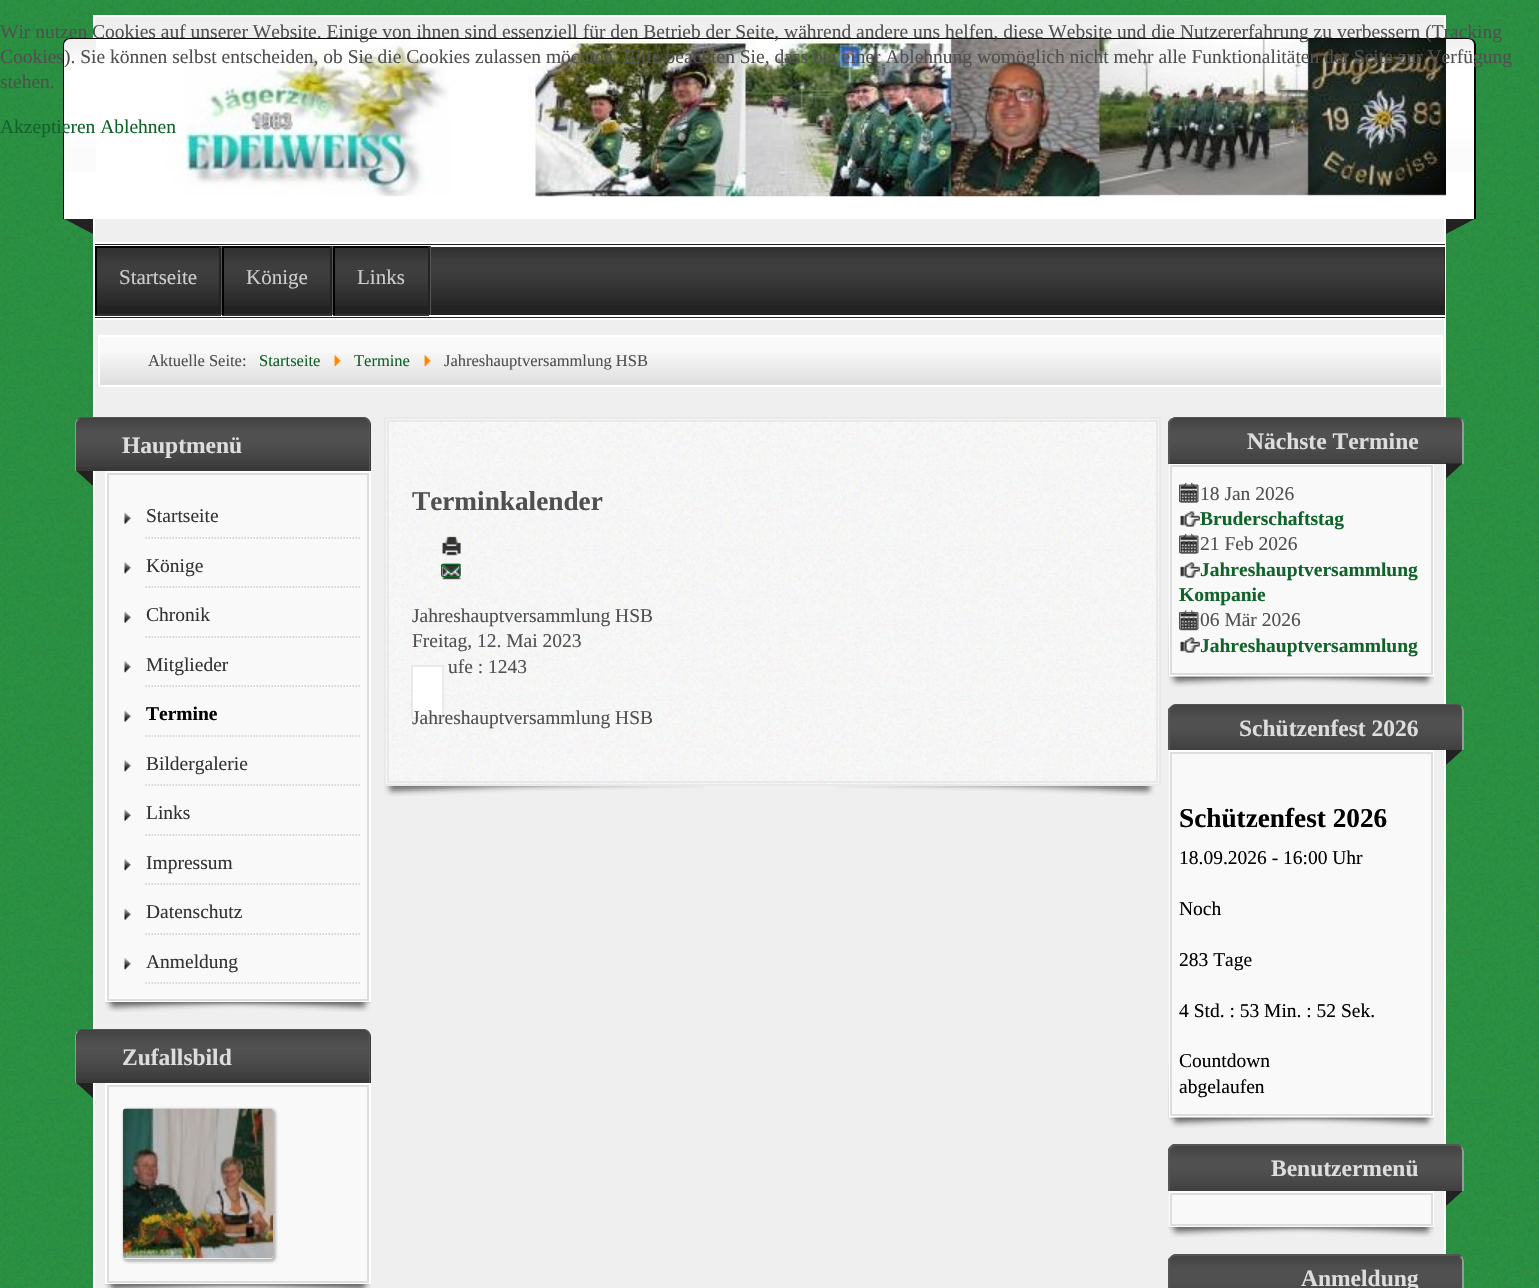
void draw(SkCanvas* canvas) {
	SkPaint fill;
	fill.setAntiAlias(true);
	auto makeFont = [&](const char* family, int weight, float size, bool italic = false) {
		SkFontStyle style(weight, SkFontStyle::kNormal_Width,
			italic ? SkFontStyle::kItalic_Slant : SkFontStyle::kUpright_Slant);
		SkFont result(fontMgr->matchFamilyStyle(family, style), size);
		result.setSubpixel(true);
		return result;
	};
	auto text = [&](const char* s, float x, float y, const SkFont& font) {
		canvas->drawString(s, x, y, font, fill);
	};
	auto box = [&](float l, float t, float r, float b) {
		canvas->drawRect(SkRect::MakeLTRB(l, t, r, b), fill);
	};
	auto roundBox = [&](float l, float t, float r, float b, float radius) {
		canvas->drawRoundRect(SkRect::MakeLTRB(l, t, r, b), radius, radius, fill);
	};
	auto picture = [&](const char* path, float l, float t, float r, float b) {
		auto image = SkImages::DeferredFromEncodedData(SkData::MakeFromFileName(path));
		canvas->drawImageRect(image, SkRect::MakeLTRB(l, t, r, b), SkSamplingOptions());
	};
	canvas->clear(0xFF188732);
	picture("image0.png", 0, 0, 1539, 1288);
	fill.setColor(0xFFEFEFEF);
	canvas->drawRect(SkRect::MakeLTRB(94, 16, 1445, 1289), fill);
	fill.setStyle(SkPaint::kStroke_Style);
	fill.setStrokeWidth(2);
	fill.setColor(0xFFFFFFFF);
	canvas->drawRect(SkRect::MakeLTRB(94, 16, 1445, 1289), fill);
	fill.setStyle(SkPaint::kFill_Style);
	canvas->drawPath(SkPathBuilder().moveTo(71, 38).lineTo(1468, 38).cubicTo(1472.5f, 38, 1476, 41.5f, 1476, 46).lineTo(1476, 219).lineTo(63, 219).lineTo(63, 46).cubicTo(63, 41.5f, 66.5f, 38, 71, 38).close().detach(), fill);
	picture("image1.png", 63, 39, 1476, 172);
	fill.setColor(0xFF000000);
	canvas->drawPath(SkPathBuilder(SkPathFillType::kEvenOdd).moveTo(70, 38).lineTo(1468, 38).cubicTo(1473, 38, 1476, 41, 1476, 45).lineTo(1476, 219).lineTo(63, 219).lineTo(63, 45).cubicTo(63, 41, 66, 38, 70, 38).close().moveTo(70, 39).lineTo(1468, 39).cubicTo(1472, 39, 1474, 42, 1474, 45).lineTo(1474, 219).lineTo(64, 219).lineTo(64, 45).cubicTo(64, 42, 67, 39, 70, 39).close().detach(), fill);
	picture("image2.png", 96, 39, 1446, 197);
	fill.setColor(0xFF222222);
	canvas->drawPath(SkPathBuilder().moveTo(64.5f, 219).lineTo(93, 219).lineTo(93, 234).close().detach(), fill);
	canvas->drawPath(SkPathBuilder().moveTo(1446, 219).lineTo(1474.5f, 219).lineTo(1446, 234).close().detach(), fill);
	box(95, 244, 1445, 318);
	picture("image3.png", 431, 247, 1445, 305);
	fill.setColor(0xFFFFFFFF);
	box(95, 242, 1445, 244);
	box(95, 245, 1445, 247);
	box(95, 315, 1445, 317);
	box(95, 318, 1445, 320);
	fill.setColor(0xFF555555);
	box(221, 246, 222, 315);
	picture("image4.png", 97, 248, 219, 306);
	fill.setColor(0xFF000000);
	box(95, 246, 221, 248);
	fill.setColor(0xFF222222);
	box(219, 246, 221, 248);
	fill.setColor(0xFF333333);
	box(95, 314, 221, 316);
	fill.setColor(0xFF000000);
	box(95, 246, 97, 315);
	fill.setColor(0xFF555555);
	box(332, 246, 333, 315);
	picture("image5.png", 224, 248, 330, 306);
	fill.setColor(0xFF000000);
	box(222, 246, 332, 248);
	fill.setColor(0xFF222222);
	box(330, 246, 332, 248);
	fill.setColor(0xFF333333);
	box(222, 314, 332, 316);
	fill.setColor(0xFF000000);
	box(222, 246, 224, 315);
	fill.setColor(0xFF555555);
	box(430, 246, 431, 315);
	picture("image6.png", 335, 248, 428, 306);
	fill.setColor(0xFF000000);
	box(333, 246, 429, 248);
	fill.setColor(0xFF222222);
	box(428, 246, 430, 248);
	fill.setColor(0xFF333333);
	box(333, 314, 429, 316);
	fill.setColor(0xFF000000);
	box(333, 246, 335, 315);
	fill.setColor(0xFFF9F9F9);
	box(100, 337, 1441, 385);
	picture("image7.png", 97, 353, 1441, 387);
	fill.setStyle(SkPaint::kStroke_Style);
	fill.setColor(0xFFFFFFFF);
	canvas->drawRect(SkRect::MakeLTRB(99, 336, 1442, 386), fill);
	picture("image8.png", 334, 355, 341, 366);
	picture("image8.png", 424, 355, 431, 366);
	fill.setStyle(SkPaint::kFill_Style);
	fill.setColor(0xFF383838);
	canvas->drawPath(SkPathBuilder().moveTo(83, 417).lineTo(363, 417).cubicTo(367.5f, 417, 371, 420.5f, 371, 425).lineTo(371, 471).lineTo(75, 471).lineTo(75, 425).cubicTo(75, 420.5f, 78.5f, 417, 83, 417).close().detach(), fill);
	picture("image9.png", 75, 418, 371, 467);
	fill.setColor(0xFF555555);
	canvas->drawPath(SkPathBuilder().moveTo(82, 417).cubicTo(80, 417, 78, 418, 77, 419).lineTo(78, 420).lineTo(81, 418).lineTo(363, 418).cubicTo(365, 418, 366, 419, 367, 420).lineTo(368, 419).cubicTo(367, 418, 365, 417, 363, 417).close().detach(), fill);
	canvas->drawPath(SkPathBuilder().moveTo(369, 471).lineTo(370, 471).lineTo(370, 424).cubicTo(370, 422, 369, 420, 368, 419).lineTo(367, 420).cubicTo(368, 421, 369, 423, 369, 424).close().detach(), fill);
	fill.setColor(0xFF999999);
	canvas->drawPath(SkPathBuilder().moveTo(75, 471).lineTo(76, 471).lineTo(76, 424).cubicTo(76, 422, 77, 421, 78, 420).lineTo(77, 419).cubicTo(76, 420, 75, 422, 75, 424).close().detach(), fill);
	fill.setColor(0xFF222222);
	canvas->drawPath(SkPathBuilder().moveTo(76.5f, 471).lineTo(93, 471).lineTo(93, 486).close().detach(), fill);
	fill.setStyle(SkPaint::kStroke_Style);
	fill.setColor(0xFFFFFFFF);
	canvas->drawRect(SkRect::MakeLTRB(106, 472, 370, 1001), fill);
	fill.setStyle(SkPaint::kFill_Style);
	fill.setColor(0xFFF9F9F9);
	canvas->drawRect(SkRect::MakeLTRB(108, 474, 368, 1000), fill);
	fill.setStyle(SkPaint::kStroke_Style);
	fill.setColor(0xFFDDDDDD);
	canvas->drawRect(SkRect::MakeLTRB(108, 474, 368, 1000), fill);
	picture("image10.png", 124, 512, 131, 524);
	fill.setStrokeWidth(1.5f);
	fill.setColor(0xFFCCCCCC);
	fill.setPathEffect(SkDashPathEffect::Make({{1.5f, 1.5f}}, 0));
	canvas->drawPath(SkPathBuilder().moveTo(145.5f, 538).lineTo(360, 538).detach(), fill);
	fill.setPathEffect(nullptr);
	picture("image11.png", 124, 562, 131, 574);
	fill.setPathEffect(SkDashPathEffect::Make({{1.5f, 1.5f}}, 0));
	canvas->drawPath(SkPathBuilder().moveTo(145.5f, 587).lineTo(360, 587).detach(), fill);
	fill.setPathEffect(nullptr);
	picture("image10.png", 124, 611, 131, 623);
	fill.setPathEffect(SkDashPathEffect::Make({{1.5f, 1.5f}}, 0));
	canvas->drawPath(SkPathBuilder().moveTo(145.5f, 637).lineTo(360, 637).detach(), fill);
	fill.setPathEffect(nullptr);
	picture("image11.png", 124, 661, 131, 673);
	fill.setPathEffect(SkDashPathEffect::Make({{1.5f, 1.5f}}, 0));
	canvas->drawPath(SkPathBuilder().moveTo(145.5f, 686).lineTo(360, 686).detach(), fill);
	fill.setPathEffect(nullptr);
	picture("image10.png", 124, 710, 131, 722);
	fill.setPathEffect(SkDashPathEffect::Make({{1.5f, 1.5f}}, 0));
	canvas->drawPath(SkPathBuilder().moveTo(145.5f, 736).lineTo(360, 736).detach(), fill);
	fill.setPathEffect(nullptr);
	picture("image11.png", 124, 760, 131, 772);
	fill.setPathEffect(SkDashPathEffect::Make({{1.5f, 1.5f}}, 0));
	canvas->drawPath(SkPathBuilder().moveTo(145.5f, 785).lineTo(360, 785).detach(), fill);
	fill.setPathEffect(nullptr);
	picture("image10.png", 124, 809, 131, 821);
	fill.setPathEffect(SkDashPathEffect::Make({{1.5f, 1.5f}}, 0));
	canvas->drawPath(SkPathBuilder().moveTo(145.5f, 835).lineTo(360, 835).detach(), fill);
	fill.setPathEffect(nullptr);
	picture("image11.png", 124, 859, 131, 871);
	fill.setPathEffect(SkDashPathEffect::Make({{1.5f, 1.5f}}, 0));
	canvas->drawPath(SkPathBuilder().moveTo(145.5f, 884).lineTo(360, 884).detach(), fill);
	fill.setPathEffect(nullptr);
	picture("image10.png", 124, 908, 131, 920);
	fill.setPathEffect(SkDashPathEffect::Make({{1.5f, 1.5f}}, 0));
	canvas->drawPath(SkPathBuilder().moveTo(145.5f, 934).lineTo(360, 934).detach(), fill);
	fill.setPathEffect(nullptr);
	picture("image11.png", 124, 958, 131, 970);
	fill.setPathEffect(SkDashPathEffect::Make({{1.5f, 1.5f}}, 0));
	canvas->drawPath(SkPathBuilder().moveTo(145.5f, 983).lineTo(360, 983).detach(), fill);
	fill.setPathEffect(nullptr);
	picture("image12.png", 105, 1002, 371, 1012);
	picture("image13.png", 105, 1002, 370, 1012);
	fill.setStyle(SkPaint::kFill_Style);
	fill.setColor(0xFF383838);
	canvas->drawPath(SkPathBuilder().moveTo(83, 1029).lineTo(363, 1029).cubicTo(367.5f, 1029, 371, 1032.5f, 371, 1037).lineTo(371, 1083).lineTo(75, 1083).lineTo(75, 1037).cubicTo(75, 1032.5f, 78.5f, 1029, 83, 1029).close().detach(), fill);
	picture("image14.png", 75, 1030, 371, 1079);
	fill.setColor(0xFF555555);
	canvas->drawPath(SkPathBuilder().moveTo(82, 1029).cubicTo(80, 1029, 78, 1030, 77, 1031).lineTo(78, 1032).lineTo(81, 1030).lineTo(363, 1030).cubicTo(365, 1030, 366, 1031, 367, 1032).lineTo(368, 1031).cubicTo(367, 1030, 365, 1029, 363, 1029).close().detach(), fill);
	canvas->drawPath(SkPathBuilder().moveTo(369, 1083).lineTo(370, 1083).lineTo(370, 1036).cubicTo(370, 1034, 369, 1032, 368, 1031).lineTo(367, 1032).cubicTo(368, 1033, 369, 1035, 369, 1036).close().detach(), fill);
	fill.setColor(0xFF999999);
	canvas->drawPath(SkPathBuilder().moveTo(75, 1083).lineTo(76, 1083).lineTo(76, 1036).cubicTo(76, 1034, 77, 1033, 78, 1032).lineTo(77, 1031).cubicTo(76, 1032, 75, 1034, 75, 1036).close().detach(), fill);
	fill.setColor(0xFF222222);
	canvas->drawPath(SkPathBuilder().moveTo(76.5f, 1083).lineTo(93, 1083).lineTo(93, 1098).close().detach(), fill);
	fill.setStyle(SkPaint::kStroke_Style);
	fill.setStrokeWidth(2);
	fill.setColor(0xFFFFFFFF);
	canvas->drawRect(SkRect::MakeLTRB(106, 1084, 370, 1283), fill);
	fill.setStyle(SkPaint::kFill_Style);
	fill.setColor(0xFFF9F9F9);
	canvas->drawRect(SkRect::MakeLTRB(108, 1086, 368, 1282), fill);
	fill.setStyle(SkPaint::kStroke_Style);
	fill.setColor(0xFFDDDDDD);
	canvas->drawRect(SkRect::MakeLTRB(108, 1086, 368, 1282), fill);
	fill.setStyle(SkPaint::kFill_Style);
	fill.setColor(0x80787878);
	fill.setMaskFilter(SkMaskFilter::MakeBlur(kNormal_SkBlurStyle, 1.5f));
	canvas->drawRoundRect(SkRect::MakeLTRB(123, 1109, 276, 1262), 5, 5, fill);
	fill.setMaskFilter(nullptr);
	fill.setColor(0xFFFFFFFF);
	roundBox(123, 1109, 273, 1259, 3);
	picture("image15.png", 123, 1108, 273, 1259);
	picture("image16.png", 105, 1284, 371, 1288);
	picture("image17.png", 105, 1284, 370, 1288);
	fill.setColor(0xFFF9F9F9);
	box(386, 419, 1159, 784);
	picture("image18.png", 386, 419, 1159, 784);
	fill.setStyle(SkPaint::kStroke_Style);
	fill.setColor(0xFFE9E9E9);
	canvas->drawRect(SkRect::MakeLTRB(385, 418, 1160, 785), fill);
	canvas->drawRect(SkRect::MakeLTRB(388, 421, 1157, 782), fill);
	picture("image19.png", 442, 536, 461, 556);
	picture("image20.png", 442, 563, 461, 580);
	picture("image21.png", 441, 563, 461, 578);
	fill.setStyle(SkPaint::kFill_Style);
	fill.setColor(0xFFFFFFFF);
	canvas->drawRect(SkRect::MakeLTRB(412, 666, 443, 718), fill);
	fill.setStyle(SkPaint::kStroke_Style);
	fill.setColor(0xFFE9E9E9);
	canvas->drawRect(SkRect::MakeLTRB(412, 666, 443, 718), fill);
	picture("image22.png", 384, 786, 704, 796);
	picture("image23.png", 835, 786, 1155, 796);
	fill.setStyle(SkPaint::kFill_Style);
	fill.setColor(0xFF383838);
	canvas->drawPath(SkPathBuilder().moveTo(1177, 417).lineTo(1456, 417).cubicTo(1460.5f, 417, 1464, 420.5f, 1464, 425).lineTo(1464, 464).lineTo(1169, 464).lineTo(1169, 425).cubicTo(1169, 420.5f, 1172.5f, 417, 1177, 417).close().detach(), fill);
	picture("image24.png", 1170, 418, 1464, 463);
	fill.setColor(0xFF555555);
	canvas->drawPath(SkPathBuilder().moveTo(1176, 417).cubicTo(1174, 417, 1172, 418, 1170, 419).lineTo(1172, 420).cubicTo(1173, 419, 1174, 418, 1176, 418).lineTo(1456, 418).cubicTo(1458, 418, 1460, 419, 1461, 420).lineTo(1462, 419).cubicTo(1461, 418, 1459, 417, 1456, 417).close().detach(), fill);
	fill.setColor(0xFF999999);
	canvas->drawPath(SkPathBuilder().moveTo(1462, 464).lineTo(1462, 424).cubicTo(1462, 423, 1462, 421, 1461, 420).lineTo(1462, 419).cubicTo(1463, 420, 1464, 422, 1464, 424).lineTo(1464, 464).close().detach(), fill);
	fill.setColor(0xFF555555);
	canvas->drawPath(SkPathBuilder().moveTo(1168, 464).lineTo(1168, 422).lineTo(1170, 419).lineTo(1172, 420).cubicTo(1171, 421, 1170, 423, 1170, 424).lineTo(1170, 464).close().detach(), fill);
	fill.setColor(0xFF222222);
	canvas->drawPath(SkPathBuilder().moveTo(1446, 463.5f).lineTo(1462.5f, 463.5f).lineTo(1446, 478.5f).close().detach(), fill);
	picture("image25.png", 1168, 623, 1169, 677);
	fill.setStyle(SkPaint::kStroke_Style);
	fill.setColor(0xFFFFFFFF);
	canvas->drawRect(SkRect::MakeLTRB(1170, 465, 1433, 676), fill);
	fill.setStyle(SkPaint::kFill_Style);
	fill.setColor(0xFFF9F9F9);
	canvas->drawRect(SkRect::MakeLTRB(1171, 466, 1432, 674), fill);
	fill.setStyle(SkPaint::kStroke_Style);
	fill.setColor(0xFFDDDDDD);
	canvas->drawRect(SkRect::MakeLTRB(1171, 466, 1432, 674), fill);
	picture("image26.png", 1180, 484, 1198, 503);
	picture("image27.png", 1179, 482, 1199, 503);
	picture("image28.png", 1180, 511, 1200, 527);
	picture("image26.png", 1180, 535, 1198, 554);
	picture("image27.png", 1179, 533, 1199, 554);
	picture("image28.png", 1180, 562, 1200, 578);
	picture("image29.png", 1180, 611, 1198, 631);
	picture("image30.png", 1179, 610, 1199, 630);
	picture("image28.png", 1180, 637, 1200, 653);
	picture("image32.png", 1169, 676, 1434, 687);
	picture("image31.png", 1168, 676, 1434, 687);
	fill.setStyle(SkPaint::kFill_Style);
	fill.setColor(0xFF383838);
	canvas->drawPath(SkPathBuilder().moveTo(1177, 704).lineTo(1456, 704).cubicTo(1460.5f, 704, 1464, 707.5f, 1464, 712).lineTo(1464, 750).lineTo(1169, 750).lineTo(1169, 712).cubicTo(1169, 707.5f, 1172.5f, 704, 1177, 704).close().detach(), fill);
	picture("image33.png", 1169, 705, 1464, 750);
	fill.setColor(0xFF555555);
	canvas->drawPath(SkPathBuilder().moveTo(1176, 704).lineTo(1456, 704).cubicTo(1458, 704, 1460, 705, 1462, 706).lineTo(1461, 707).cubicTo(1459, 706, 1458, 705, 1456, 705).lineTo(1175, 705).lineTo(1172, 707).lineTo(1171, 706).cubicTo(1172, 705, 1174, 704, 1176, 704).close().detach(), fill);
	fill.setColor(0xFF999999);
	canvas->drawPath(SkPathBuilder().moveTo(1462, 706).cubicTo(1463, 707, 1464, 709, 1464, 711).lineTo(1464, 750).lineTo(1462, 750).lineTo(1462, 711).cubicTo(1462, 710, 1462, 708, 1461, 707).close().detach(), fill);
	fill.setColor(0xFF555555);
	canvas->drawPath(SkPathBuilder().moveTo(1168, 750).lineTo(1170, 750).lineTo(1170, 711).cubicTo(1170, 710, 1171, 708, 1172, 707).lineTo(1171, 706).lineTo(1168, 709).close().detach(), fill);
	fill.setColor(0xFF222222);
	canvas->drawPath(SkPathBuilder().moveTo(1446, 750).lineTo(1462.5f, 750).lineTo(1446, 765).close().detach(), fill);
	picture("image25.png", 1168, 1064, 1169, 1118);
	fill.setStyle(SkPaint::kStroke_Style);
	fill.setColor(0xFFFFFFFF);
	canvas->drawRect(SkRect::MakeLTRB(1170, 751, 1433, 1117), fill);
	fill.setStyle(SkPaint::kFill_Style);
	fill.setColor(0xFFF9F9F9);
	canvas->drawRect(SkRect::MakeLTRB(1171, 753, 1432, 1115), fill);
	fill.setStyle(SkPaint::kStroke_Style);
	fill.setColor(0xFFDDDDDD);
	canvas->drawRect(SkRect::MakeLTRB(1171, 753, 1432, 1115), fill);
	picture("image32.png", 1169, 1117, 1434, 1128);
	picture("image31.png", 1168, 1117, 1434, 1128);
	fill.setStyle(SkPaint::kFill_Style);
	fill.setColor(0xFF383838);
	canvas->drawPath(SkPathBuilder().moveTo(1177, 1145).lineTo(1456, 1145).cubicTo(1460.5f, 1145, 1464, 1148.5f, 1464, 1153).lineTo(1464, 1191).lineTo(1169, 1191).lineTo(1169, 1153).cubicTo(1169, 1148.5f, 1172.5f, 1145, 1177, 1145).close().detach(), fill);
	picture("image34.png", 1170, 1146, 1464, 1191);
	fill.setColor(0xFF555555);
	canvas->drawPath(SkPathBuilder().moveTo(1176, 1146).cubicTo(1174, 1146, 1173, 1147, 1172, 1148).lineTo(1170, 1146).lineTo(1173, 1144).lineTo(1459, 1144).lineTo(1462, 1147).lineTo(1461, 1148).cubicTo(1460, 1147, 1458, 1146, 1456, 1146).close().detach(), fill);
	fill.setColor(0xFF999999);
	canvas->drawPath(SkPathBuilder().moveTo(1462, 1191).lineTo(1464, 1191).lineTo(1464, 1152).cubicTo(1464, 1150, 1463, 1148, 1462, 1147).lineTo(1461, 1148).cubicTo(1462, 1149, 1462, 1151, 1462, 1152).close().detach(), fill);
	fill.setColor(0xFF555555);
	canvas->drawPath(SkPathBuilder().moveTo(1168, 1191).lineTo(1168, 1149).lineTo(1170, 1146).lineTo(1172, 1148).cubicTo(1171, 1149, 1170, 1150, 1170, 1152).lineTo(1170, 1191).close().detach(), fill);
	fill.setColor(0xFF222222);
	canvas->drawPath(SkPathBuilder().moveTo(1446, 1191).lineTo(1462.5f, 1191).lineTo(1446, 1206).close().detach(), fill);
	fill.setStyle(SkPaint::kStroke_Style);
	fill.setColor(0xFFFFFFFF);
	canvas->drawRect(SkRect::MakeLTRB(1170, 1192, 1433, 1226), fill);
	fill.setStyle(SkPaint::kFill_Style);
	fill.setColor(0xFFF9F9F9);
	canvas->drawRect(SkRect::MakeLTRB(1171, 1194, 1432, 1225), fill);
	fill.setStyle(SkPaint::kStroke_Style);
	fill.setColor(0xFFDDDDDD);
	canvas->drawRect(SkRect::MakeLTRB(1171, 1194, 1432, 1225), fill);
	picture("image36.png", 1169, 1227, 1434, 1237);
	picture("image35.png", 1168, 1227, 1434, 1237);
	fill.setStyle(SkPaint::kFill_Style);
	fill.setColor(0xFF383838);
	canvas->drawPath(SkPathBuilder().moveTo(1177, 1254).lineTo(1456, 1254).cubicTo(1460.5f, 1254, 1464, 1257.5f, 1464, 1262).lineTo(1464, 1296).lineTo(1169, 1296).lineTo(1169, 1262).cubicTo(1169, 1257.5f, 1172.5f, 1254, 1177, 1254).close().detach(), fill);
	picture("image37.png", 1170, 1255, 1464, 1288);
	fill.setColor(0xFF555555);
	canvas->drawPath(SkPathBuilder().moveTo(1176, 1254).cubicTo(1174, 1254, 1172, 1255, 1171, 1256).lineTo(1172, 1257).lineTo(1175, 1256).lineTo(1456, 1256).cubicTo(1458, 1256, 1459, 1256, 1460, 1258).lineTo(1462, 1256).cubicTo(1460, 1255, 1458, 1254, 1456, 1254).close().detach(), fill);
	fill.setColor(0xFF999999);
	canvas->drawPath(SkPathBuilder().moveTo(1464, 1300).lineTo(1464, 1262).cubicTo(1464, 1260, 1463, 1258, 1462, 1256).lineTo(1460, 1258).cubicTo(1462, 1258, 1462, 1260, 1462, 1262).lineTo(1462, 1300).close().detach(), fill);
	fill.setColor(0xFF555555);
	canvas->drawPath(SkPathBuilder().moveTo(1168, 1259).lineTo(1171, 1256).lineTo(1172, 1257).cubicTo(1171, 1258, 1170, 1260, 1170, 1262).lineTo(1170, 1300).lineTo(1168, 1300).close().detach(), fill);
	auto font1 = makeFont("Liberation Serif", 400, 19.5f);
	fill.setColor(0xFF505050);
	text("Wir nutzen Cookies auf unserer Website. Einige von ihnen sind essenziell für den Betrieb der Seite, während andere uns helfen, diese Website und die Nutzererfahrung zu verbessern (Tracking", 0, 38, font1);
	text("Cookies). Sie können selbst entscheiden, ob Sie die Cookies zulassen möchten. Bitte beachten Sie, dass bei einer Ablehnung womöglich nicht mehr alle Funktionalitäten der Seite zur Verfügung", 0, 63, font1);
	text("stehen.", 0, 88, font1);
	fill.setColor(0xFF106329);
	text("Akzeptieren Ablehnen", 0, 133, font1);
	auto font2 = makeFont("Liberation Serif", 400, 21);
	fill.setColor(0xFFCCCCCC);
	text("Startseite", 119, 284, font2);
	text("Könige", 246, 284, font2);
	text("Links", 357, 284, font2);
	auto font3 = makeFont("Liberation Serif", 400, 16.5f);
	fill.setColor(0xFF505050);
	text("Aktuelle Seite:", 148, 366, font3);
	fill.setColor(0xFF106329);
	text("Startseite", 259, 366, font3);
	text("Termine", 354, 366, font3);
	fill.setColor(0xFF505050);
	text("Jahreshauptversammlung HSB", 444, 366, font3);
	auto font4 = makeFont("Liberation Serif", 700, 23.5f);
	fill.setColor(0xFFDDDDDD);
	text("Hauptmenü", 122, 453, font4);
	fill.setColor(0xFF333333);
	text("Startseite", 146, 522, font1);
	text("Könige", 146, 572, font1);
	text("Chronik", 146, 621, font1);
	text("Mitglieder", 146, 671, font1);
	auto font5 = makeFont("Liberation Serif", 700, 19.5f);
	fill.setColor(0xFF000000);
	text("Termine", 146, 720, font5);
	fill.setColor(0xFF333333);
	text("Bildergalerie", 146, 770, font1);
	text("Links", 146, 819, font1);
	text("Impressum", 146, 869, font1);
	text("Datenschutz", 146, 918, font1);
	text("Anmeldung", 146, 968, font1);
	fill.setColor(0xFFDDDDDD);
	text("Zufallsbild", 122, 1065, font4);
	auto font6 = makeFont("Liberation Serif", 700, 27.25f);
	fill.setColor(0xFF505050);
	text("Terminkalender", 412, 510, font6);
	text("Jahreshauptversammlung HSB", 412, 622, font1);
	text("Freitag, 12. Mai 2023", 412, 647, font1);
	text("ufe : 1243", 448, 673, font1);
	text("Jahreshauptversammlung HSB", 412, 724, font1);
	fill.setColor(0xFFDDDDDD);
	text("Nächste Termine", 1247, 449, font4);
	fill.setColor(0xFF505050);
	text("18 Jan 2026", 1200, 500, font1);
	fill.setColor(0xFF106329);
	text("Bruderschaftstag", 1200, 525, font5);
	fill.setColor(0xFF505050);
	text("21 Feb 2026", 1200, 550, font1);
	fill.setColor(0xFF106329);
	text("Jahreshauptversammlung", 1200, 576, font5);
	text("Kompanie", 1179, 601, font5);
	fill.setColor(0xFF505050);
	text("06 Mär 2026", 1200, 626, font1);
	fill.setColor(0xFF106329);
	text("Jahreshauptversammlung", 1200, 652, font5);
	fill.setColor(0xFFDDDDDD);
	text("Schützenfest 2026", 1239, 736, font4);
	fill.setColor(0xFF000000);
	text("Schützenfest 2026", 1179, 827, font6);
	text("18.09.2026 - 16:00 Uhr", 1179, 864, font1);
	text("Noch", 1179, 915, font1);
	text("283 Tage", 1179, 966, font1);
	text("4 Std. : 53 Min. : 52 Sek.", 1179, 1017, font1);
	text("Countdown", 1179, 1067, font1);
	text("abgelaufen", 1179, 1093, font1);
	fill.setColor(0xFFDDDDDD);
	text("Benutzermenü", 1271, 1176, font4);
	text("Anmeldung", 1301, 1286, font4);
}
